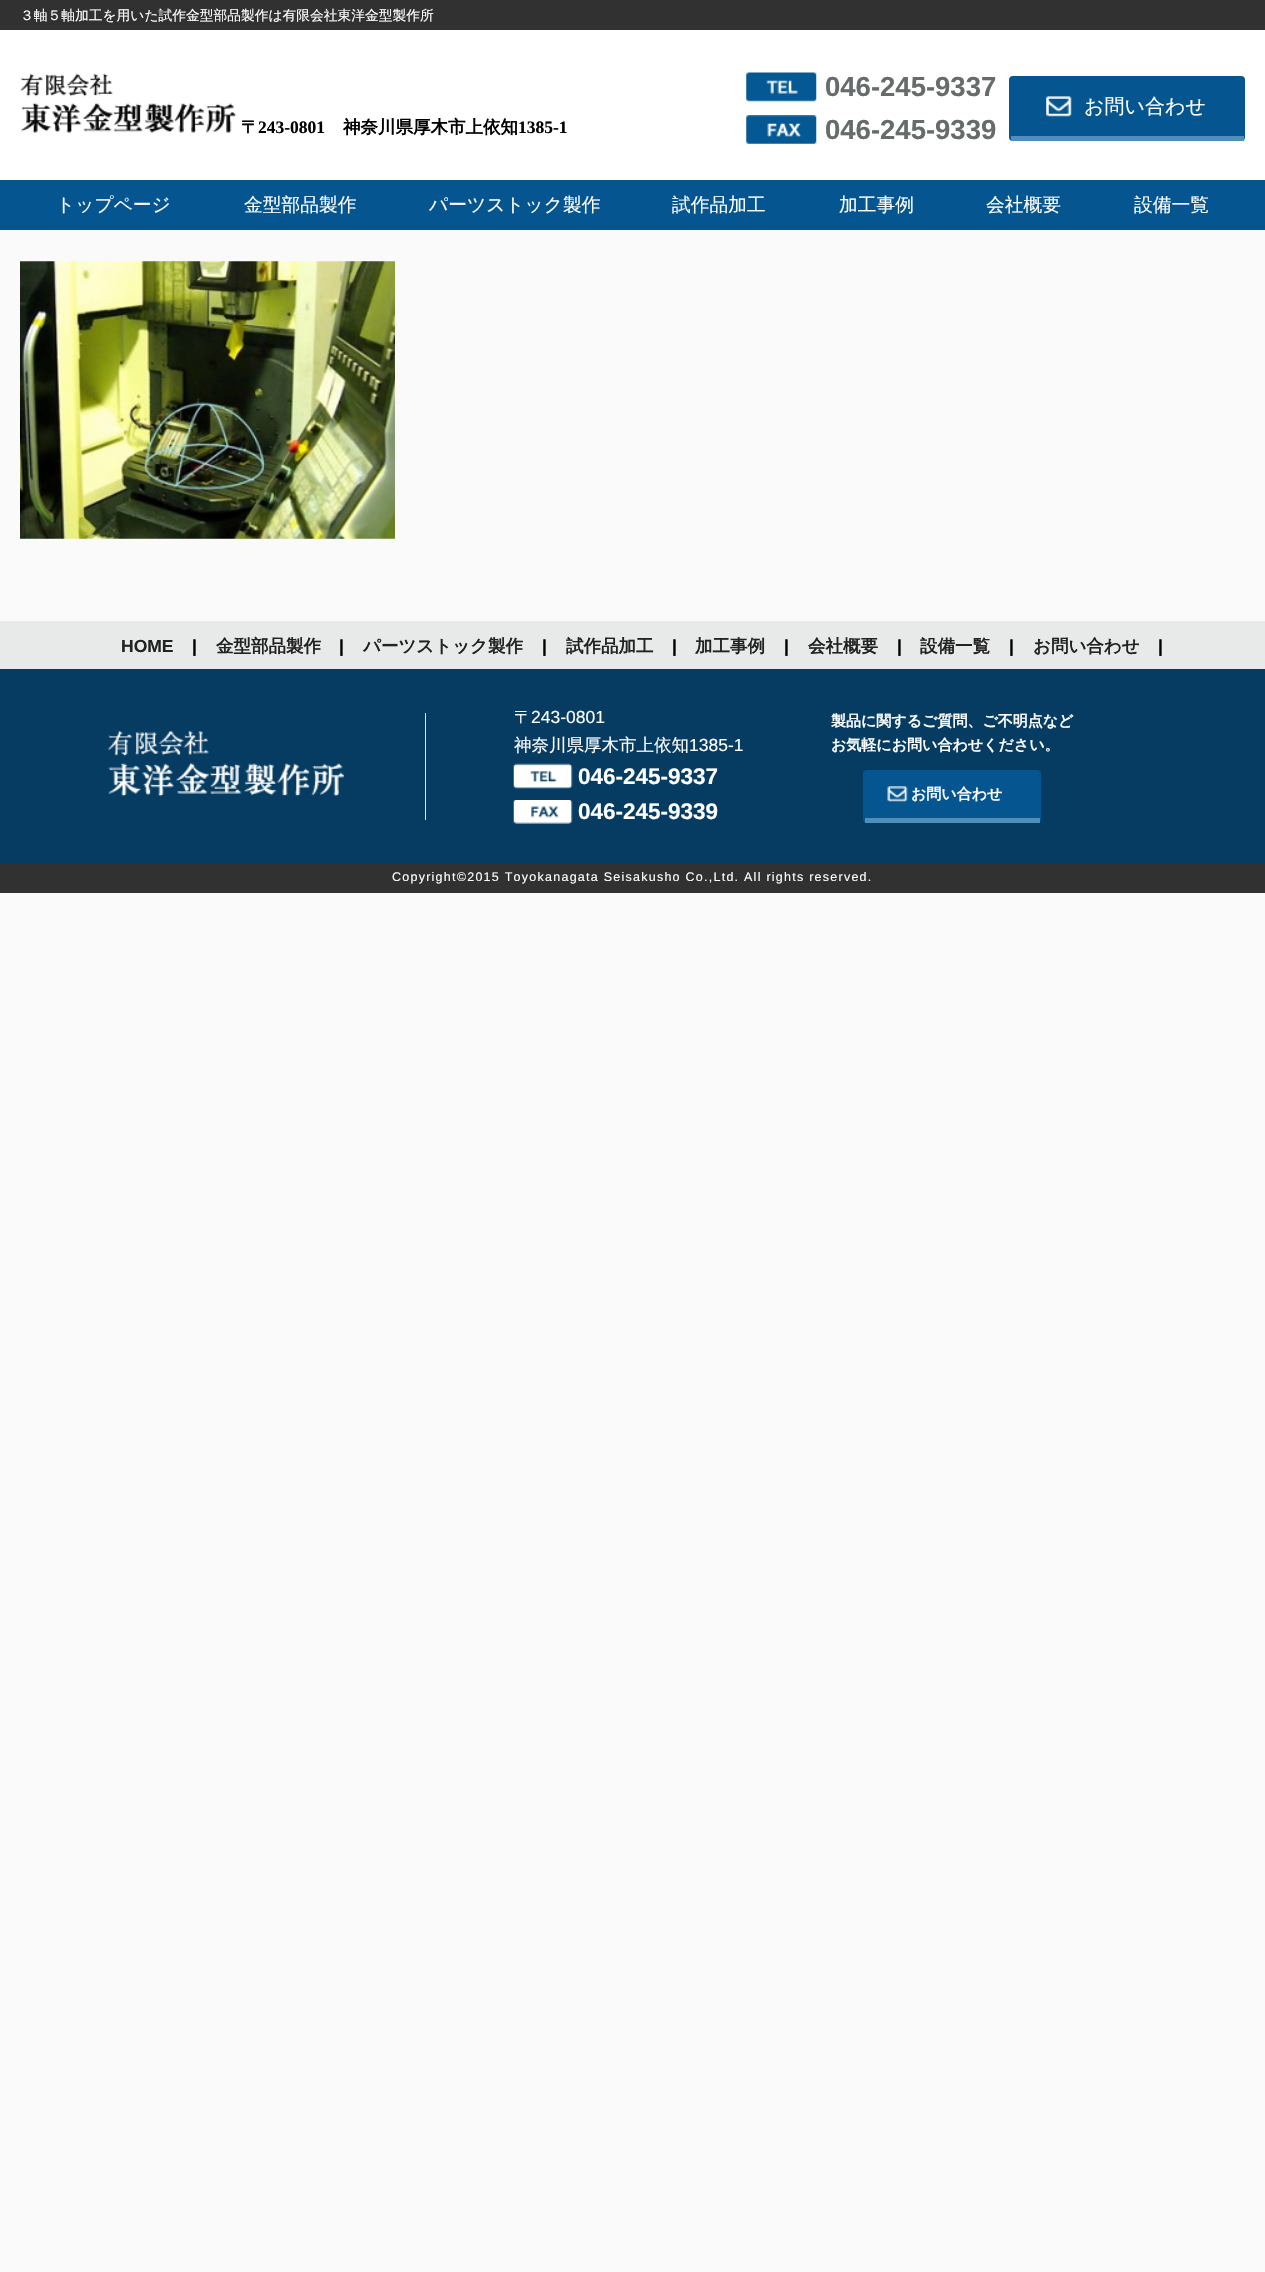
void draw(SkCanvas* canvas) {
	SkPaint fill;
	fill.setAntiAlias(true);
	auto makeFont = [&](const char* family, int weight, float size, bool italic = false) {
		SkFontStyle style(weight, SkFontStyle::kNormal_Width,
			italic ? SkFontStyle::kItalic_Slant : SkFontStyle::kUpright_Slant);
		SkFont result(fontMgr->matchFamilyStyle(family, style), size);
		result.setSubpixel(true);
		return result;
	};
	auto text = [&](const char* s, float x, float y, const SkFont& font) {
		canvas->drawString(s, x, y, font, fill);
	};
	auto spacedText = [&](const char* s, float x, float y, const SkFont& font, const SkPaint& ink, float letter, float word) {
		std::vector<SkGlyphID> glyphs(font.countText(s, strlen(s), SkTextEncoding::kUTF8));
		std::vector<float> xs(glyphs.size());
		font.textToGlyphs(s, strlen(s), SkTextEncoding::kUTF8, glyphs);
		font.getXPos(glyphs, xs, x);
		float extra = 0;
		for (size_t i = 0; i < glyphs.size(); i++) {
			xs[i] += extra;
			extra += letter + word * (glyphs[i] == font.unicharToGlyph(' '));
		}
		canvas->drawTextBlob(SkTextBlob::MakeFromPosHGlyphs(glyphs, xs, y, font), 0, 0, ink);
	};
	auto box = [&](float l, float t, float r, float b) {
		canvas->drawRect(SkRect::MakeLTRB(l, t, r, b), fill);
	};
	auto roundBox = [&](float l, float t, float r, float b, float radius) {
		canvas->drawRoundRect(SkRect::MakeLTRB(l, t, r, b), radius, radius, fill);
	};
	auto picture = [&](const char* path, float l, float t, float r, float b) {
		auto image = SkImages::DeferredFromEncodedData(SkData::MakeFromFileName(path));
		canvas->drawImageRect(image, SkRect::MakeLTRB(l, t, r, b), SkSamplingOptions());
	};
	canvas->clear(0xFFFAFAFB);
	fill.setColor(0xFFFFFFFF);
	box(0, 30, 1265, 180);
	fill.setColor(0xFF313131);
	box(0, 0, 1265, 30);
	picture("image0.png", 746, 72, 817, 102);
	picture("image1.png", 746, 115, 817, 144);
	fill.setColor(0xFF045590);
	roundBox(1009, 76, 1245, 141, 4);
	picture("image2.png", 1046, 96, 1072, 117);
	fill.setColor(0xFF518EB9);
	box(1011, 136, 1244, 141);
	picture("image3.png", 20, 73, 237, 133);
	fill.setColor(0xFF045590);
	box(0, 180, 1265, 230);
	picture("image4.png", 20, 261, 395, 539);
	fill.setColor(0xFFE8E9E9);
	box(0, 621, 1265, 669);
	fill.setColor(0xFF063C62);
	box(0, 669, 1265, 863);
	fill.setColor(0xFFE2E4E4);
	box(425, 713, 426, 820);
	picture("image5.png", 107, 731, 344, 797);
	picture("image6.png", 513, 763, 573, 789);
	picture("image7.png", 513, 800, 573, 824);
	fill.setColor(0xFF045590);
	roundBox(863, 770, 1041, 823, 4);
	picture("image8.png", 887, 786, 908, 802);
	fill.setColor(0xFF518EB9);
	box(865, 818, 1040, 823);
	fill.setColor(0xFF313131);
	box(0, 863, 1265, 893);
	auto font1 = makeFont("WenQuanYi Zen Hei", 500, 13.75f);
	fill.setColor(0xFFFFFFFF);
	text("３軸５軸加工を用いた試作金型部品製作は有限会社東洋金型製作所", 20, 20, font1);
	auto font2 = makeFont("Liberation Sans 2", 700, 27.5f);
	fill.setColor(0xFF666B6B);
	text("046-245-9337", 825, 96, font2);
	text("046-245-9339", 825, 139, font2);
	auto font3 = makeFont("WenQuanYi Zen Hei", 500, 20);
	fill.setColor(0xFFFFFFFF);
	text("お問い合わせ", 1084, 113, font3);
	auto font4 = makeFont("WenQuanYi Zen Hei", 700, 17.5f);
	fill.setColor(0xFF000000);
	text("〒", 241, 133, font4);
	auto font5 = makeFont("Liberation Serif", 700, 17.5f);
	text("243-0801", 258, 133, font5);
	text("神奈川県厚木市上依知", 343, 133, font4);
	text("1385-1", 518, 133, font5);
	auto font6 = makeFont("WenQuanYi Zen Hei", 500, 18.75f);
	fill.setColor(0xFFFFFFFF);
	text("トップページ", 56, 211, font6);
	text("金型部品製作", 244, 211, font6);
	text("パーツストック製作", 429, 211, font6);
	text("試作品加工", 672, 211, font6);
	text("加工事例", 839, 211, font6);
	text("会社概要", 986, 211, font6);
	text("設備一覧", 1134, 211, font6);
	auto font7 = makeFont("Liberation Sans", 700, 17.5f);
	fill.setColor(0xFF222222);
	text("HOME", 121, 652, font7);
	fill.setColor(0xFF000000);
	text("|", 192, 652, font7);
	fill.setColor(0xFF222222);
	text("金型部品製作", 216, 652, font4);
	fill.setColor(0xFF000000);
	text("|", 339, 652, font7);
	fill.setColor(0xFF222222);
	text("パーツストック製作", 363, 652, font4);
	fill.setColor(0xFF000000);
	text("|", 542, 652, font7);
	fill.setColor(0xFF222222);
	text("試作品加工", 566, 652, font4);
	fill.setColor(0xFF000000);
	text("|", 672, 652, font7);
	fill.setColor(0xFF222222);
	text("加工事例", 695, 652, font4);
	fill.setColor(0xFF000000);
	text("|", 784, 652, font7);
	fill.setColor(0xFF222222);
	text("会社概要", 808, 652, font4);
	fill.setColor(0xFF000000);
	text("|", 897, 652, font7);
	fill.setColor(0xFF222222);
	text("設備一覧", 920, 652, font4);
	fill.setColor(0xFF000000);
	text("|", 1009, 652, font7);
	fill.setColor(0xFF222222);
	text("お問い合わせ", 1033, 652, font4);
	fill.setColor(0xFF000000);
	text("|", 1158, 652, font7);
	auto font8 = makeFont("WenQuanYi Zen Hei", 500, 17.5f);
	fill.setColor(0xFFFFFFFF);
	text("〒", 514, 723, font8);
	auto font9 = makeFont("Liberation Sans", 400, 17.5f);
	text("243-0801", 531, 723, font9);
	text("神奈川県厚木市上依知", 514, 751, font8);
	text("1385-1", 689, 751, font9);
	auto font10 = makeFont("Liberation Sans 2", 700, 22.5f);
	text("046-245-9337", 578, 784, font10);
	text("046-245-9339", 578, 819, font10);
	auto font11 = makeFont("WenQuanYi Zen Hei", 700, 15);
	text("製品に関するご質問、ご不明点など", 831, 726, font11);
	text("お気軽にお問い合わせください。", 831, 750, font11);
	text("お問い合わせ", 911, 799, font11);
	auto font12 = makeFont("Liberation Sans", 400, 12.5f);
	spacedText("Copyright©2015 Toyokanagata Seisakusho Co.,Ltd. All rights reserved.", 392, 881, font12, fill, 1.25f, 0);
}
